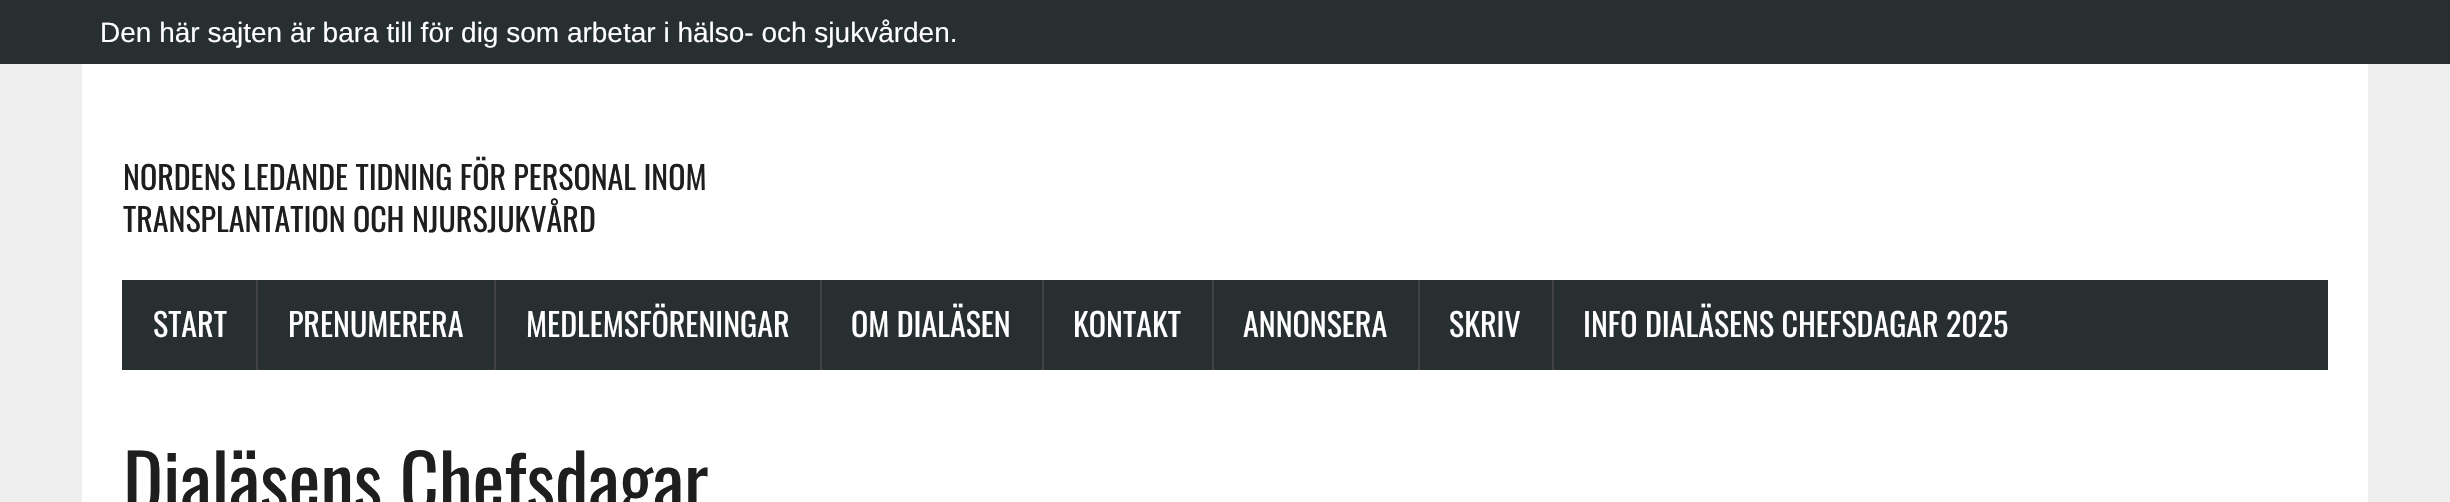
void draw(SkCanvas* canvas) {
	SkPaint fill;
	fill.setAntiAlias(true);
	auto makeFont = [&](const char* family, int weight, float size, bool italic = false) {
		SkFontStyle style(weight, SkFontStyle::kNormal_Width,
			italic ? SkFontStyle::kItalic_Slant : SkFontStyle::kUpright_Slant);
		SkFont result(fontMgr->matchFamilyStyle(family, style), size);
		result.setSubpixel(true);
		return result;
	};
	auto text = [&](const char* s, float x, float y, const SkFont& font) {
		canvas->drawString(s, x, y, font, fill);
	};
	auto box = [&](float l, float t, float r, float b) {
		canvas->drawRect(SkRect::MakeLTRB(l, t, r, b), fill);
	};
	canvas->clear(0xFFEFEFEF);
	fill.setColor(0xFF282F30);
	box(0, 0, 2450, 64);
	fill.setColor(0xFFFFFFFF);
	box(82, 64, 2368, 502);
	fill.setColor(0xFF282F30);
	box(122, 280, 2328, 370);
	fill.setColor(0xFF424242);
	box(256, 280, 258, 370);
	box(494, 280, 496, 370);
	box(820, 280, 822, 370);
	box(1042, 280, 1044, 370);
	box(1212, 280, 1214, 370);
	box(1418, 280, 1420, 370);
	box(1552, 280, 1554, 370);
	auto font1 = makeFont("Liberation Sans", 400, 28);
	fill.setColor(0xFFFFFFFF);
	text("Den här sajten är bara till för dig som arbetar i hälso- och sjukvården.", 100, 42, font1);
	auto font2 = makeFont("Oswald", 400, 32);
	fill.setColor(0xFF1F1E1E);
	text("NORDENS LEDANDE TIDNING FÖR PERSONAL INOM", 123, 190, font2);
	text("TRANSPLANTATION OCH NJURSJUKVÅRD", 123, 232, font2);
	fill.setColor(0xFFFFFFFF);
	text("START", 153, 337, font2);
	text("PRENUMERERA", 288, 337, font2);
	text("MEDLEMSFÖRENINGAR", 526, 337, font2);
	text("OM DIALÄSEN", 851, 337, font2);
	text("KONTAKT", 1073, 337, font2);
	text("ANNONSERA", 1243, 337, font2);
	text("SKRIV", 1449, 337, font2);
	text("INFO DIALÄSENS CHEFSDAGAR 2025", 1583, 337, font2);
	auto font3 = makeFont("Oswald", 400, 76);
	fill.setColor(0xFF1F1E1E);
	text("Dialäsens Chefsdagar", 123, 512, font3);
}
